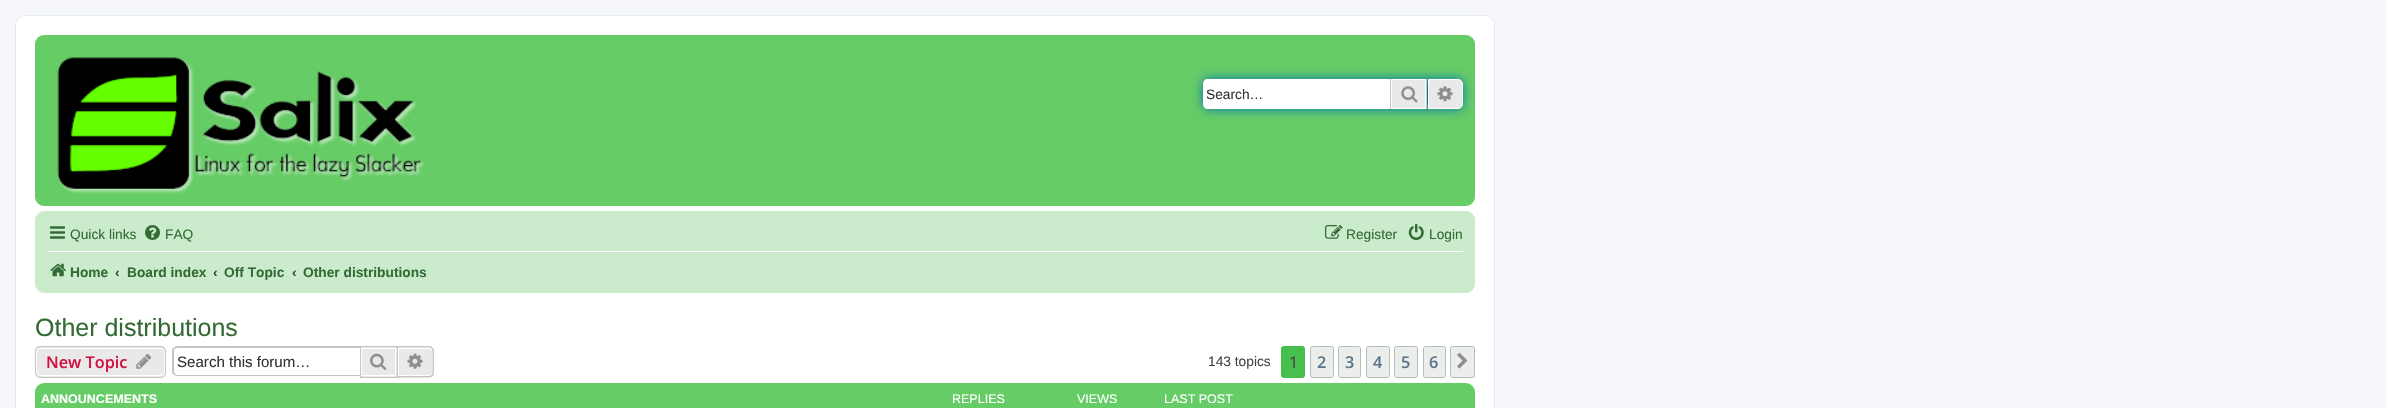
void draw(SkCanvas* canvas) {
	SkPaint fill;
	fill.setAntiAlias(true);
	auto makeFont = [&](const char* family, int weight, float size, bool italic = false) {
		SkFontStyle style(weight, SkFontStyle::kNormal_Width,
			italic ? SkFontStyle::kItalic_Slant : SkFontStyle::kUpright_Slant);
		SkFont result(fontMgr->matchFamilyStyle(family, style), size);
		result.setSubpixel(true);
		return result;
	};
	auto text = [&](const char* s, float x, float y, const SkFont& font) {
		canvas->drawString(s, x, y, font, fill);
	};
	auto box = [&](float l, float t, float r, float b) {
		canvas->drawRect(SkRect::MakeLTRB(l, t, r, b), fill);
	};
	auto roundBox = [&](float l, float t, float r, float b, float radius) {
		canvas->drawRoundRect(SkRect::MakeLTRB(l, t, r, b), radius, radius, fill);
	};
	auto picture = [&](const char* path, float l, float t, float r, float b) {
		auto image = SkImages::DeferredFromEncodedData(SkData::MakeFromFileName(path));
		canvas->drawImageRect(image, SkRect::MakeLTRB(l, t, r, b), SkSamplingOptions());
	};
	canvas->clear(0xFFF5F7FA);
	fill.setColor(0xFFFFFFFF);
	canvas->drawRoundRect(SkRect::MakeLTRB(15.5f, 15.5f, 1494.5f, 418.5f), 9.5f, 9.5f, fill);
	fill.setStyle(SkPaint::kStroke_Style);
	fill.setStrokeWidth(1);
	fill.setColor(0xFFE6E9ED);
	canvas->drawRoundRect(SkRect::MakeLTRB(15.5f, 15.5f, 1494.5f, 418.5f), 9.5f, 9.5f, fill);
	fill.setStyle(SkPaint::kFill_Style);
	fill.setColor(0xFF66CC66);
	roundBox(35, 35, 1475, 206, 9);
	picture("image0.png", 57, 57, 425, 194);
	fill.setColor(0xFF0075B0);
	fill.setMaskFilter(SkMaskFilter::MakeBlur(kNormal_SkBlurStyle, 6));
	canvas->drawRoundRect(SkRect::MakeLTRB(1203, 79, 1463, 109), 5, 5, fill);
	fill.setMaskFilter(nullptr);
	fill.setColor(0xFFFFFFFF);
	canvas->drawPath(SkPathBuilder().moveTo(1208, 79).lineTo(1390, 79).lineTo(1390, 109).lineTo(1208, 109).cubicTo(1205, 109, 1203, 107, 1203, 104).lineTo(1203, 84).cubicTo(1203, 81, 1205, 79, 1208, 79).close().detach(), fill);
	fill.setColor(0xFFE9E9E9);
	canvas->drawRect(SkRect::MakeLTRB(1391.5f, 79.5f, 1425.5f, 108.5f), fill);
	fill.setStyle(SkPaint::kStroke_Style);
	fill.setColor(0xFFFFFFFF);
	canvas->drawRect(SkRect::MakeLTRB(1391.5f, 79.5f, 1425.5f, 108.5f), fill);
	fill.setStyle(SkPaint::kFill_Style);
	fill.setColor(0xFFC7C3BF);
	box(1426, 79, 1427, 109);
	box(1390, 79, 1391, 109);
	picture("image1.png", 1401, 86, 1418, 103);
	fill.setColor(0xFFE9E9E9);
	canvas->drawPath(SkPathBuilder().moveTo(1428.5f, 79.5f).lineTo(1458, 79.5f).cubicTo(1460.5f, 79.5f, 1462.5f, 81.5f, 1462.5f, 84).lineTo(1462.5f, 104).cubicTo(1462.5f, 106.5f, 1460.5f, 108.5f, 1458, 108.5f).lineTo(1428.5f, 108.5f).close().detach(), fill);
	fill.setStyle(SkPaint::kStroke_Style);
	fill.setColor(0xFFFFFFFF);
	canvas->drawPath(SkPathBuilder().moveTo(1428.5f, 79.5f).lineTo(1458, 79.5f).cubicTo(1460.5f, 79.5f, 1462.5f, 81.5f, 1462.5f, 84).lineTo(1462.5f, 104).cubicTo(1462.5f, 106.5f, 1460.5f, 108.5f, 1458, 108.5f).lineTo(1428.5f, 108.5f).close().detach(), fill);
	picture("image2.png", 1437, 86, 1453, 102);
	fill.setStyle(SkPaint::kFill_Style);
	fill.setColor(0xFFCAEBCC);
	roundBox(35, 211, 1475, 293, 9);
	picture("image3.png", 50, 226, 65, 239);
	picture("image4.png", 145, 225, 160, 240);
	picture("image5.png", 1325, 225, 1343, 239);
	picture("image6.png", 1408, 223, 1424, 240);
	fill.setColor(0xFFFFFFFF);
	box(48, 251, 1463, 252);
	picture("image7.png", 50, 263, 66, 277);
	fill.setColor(0xFFE9E9E9);
	roundBox(35, 346, 166, 378, 5);
	fill.setStyle(SkPaint::kStroke_Style);
	fill.setColor(0xFFFFFFFF);
	canvas->drawRoundRect(SkRect::MakeLTRB(36.5f, 348.5f, 164.5f, 375.5f), 3.5f, 3.5f, fill);
	fill.setColor(0xFFC7C3BF);
	canvas->drawRoundRect(SkRect::MakeLTRB(35.5f, 346.5f, 165.5f, 377.5f), 4.5f, 4.5f, fill);
	picture("image8.png", 136, 354, 151, 369);
	fill.setStyle(SkPaint::kFill_Style);
	canvas->drawPath(SkPathBuilder(SkPathFillType::kEvenOdd).moveTo(178, 346).lineTo(360, 346).lineTo(360, 376).lineTo(178, 376).cubicTo(175, 376, 172, 374, 172, 371).lineTo(172, 351).cubicTo(172, 348, 175, 346, 178, 346).close().moveTo(178, 348).lineTo(360, 348).lineTo(360, 375).lineTo(178, 375).cubicTo(175, 375, 174, 373, 174, 371).lineTo(174, 351).cubicTo(174, 349, 175, 348, 178, 348).close().detach(), fill);
	fill.setColor(0xFFE9E9E9);
	box(361, 347, 397, 377);
	fill.setStyle(SkPaint::kStroke_Style);
	fill.setColor(0xFFFFFFFF);
	canvas->drawRect(SkRect::MakeLTRB(361.5f, 348.5f, 395.5f, 375.5f), fill);
	fill.setColor(0xFFC7C3BF);
	canvas->drawRect(SkRect::MakeLTRB(360.5f, 346.5f, 397.5f, 377.5f), fill);
	picture("image9.png", 370, 353, 387, 370);
	fill.setStyle(SkPaint::kFill_Style);
	fill.setColor(0xFFE9E9E9);
	canvas->drawPath(SkPathBuilder().moveTo(398.5f, 348.5f).lineTo(429, 348.5f).cubicTo(431, 348.5f, 432.5f, 350, 432.5f, 352).lineTo(432.5f, 372).cubicTo(432.5f, 374, 431, 375.5f, 429, 375.5f).lineTo(398.5f, 375.5f).close().detach(), fill);
	fill.setStyle(SkPaint::kStroke_Style);
	fill.setColor(0xFFFFFFFF);
	canvas->drawPath(SkPathBuilder().moveTo(398.5f, 348.5f).lineTo(429, 348.5f).cubicTo(431, 348.5f, 432.5f, 350, 432.5f, 352).lineTo(432.5f, 372).cubicTo(432.5f, 374, 431, 375.5f, 429, 375.5f).lineTo(398.5f, 375.5f).close().detach(), fill);
	fill.setStyle(SkPaint::kFill_Style);
	fill.setColor(0xFFC7C3BF);
	canvas->drawPath(SkPathBuilder(SkPathFillType::kEvenOdd).moveTo(397.5f, 346).lineTo(429, 346).cubicTo(431.5f, 346, 434, 348.5f, 434, 351).lineTo(434, 372.5f).cubicTo(434, 375.5f, 431.5f, 377.5f, 429, 377.5f).lineTo(397.5f, 377.5f).close().moveTo(397.5f, 347.5f).lineTo(429, 347.5f).cubicTo(431, 347.5f, 432.5f, 349, 432.5f, 351).lineTo(432.5f, 372.5f).cubicTo(432.5f, 374.5f, 431, 376, 429, 376).lineTo(397.5f, 376).close().detach(), fill);
	picture("image10.png", 407, 353, 423, 369);
	fill.setColor(0xFF46BF4D);
	canvas->drawRoundRect(SkRect::MakeLTRB(1281.5f, 346.5f, 1304.5f, 377.5f), 2, 2, fill);
	fill.setStyle(SkPaint::kStroke_Style);
	canvas->drawRoundRect(SkRect::MakeLTRB(1281.5f, 346.5f, 1304.5f, 377.5f), 2, 2, fill);
	fill.setStyle(SkPaint::kFill_Style);
	fill.setColor(0xFFECEEEC);
	canvas->drawRoundRect(SkRect::MakeLTRB(1310.5f, 346.5f, 1333.5f, 377.5f), 2, 2, fill);
	fill.setStyle(SkPaint::kStroke_Style);
	fill.setColor(0xFFB4C0B6);
	canvas->drawRoundRect(SkRect::MakeLTRB(1310.5f, 346.5f, 1333.5f, 377.5f), 2, 2, fill);
	fill.setStyle(SkPaint::kFill_Style);
	fill.setColor(0xFFECEEEC);
	canvas->drawRoundRect(SkRect::MakeLTRB(1338.5f, 346.5f, 1360.5f, 377.5f), 2, 2, fill);
	fill.setStyle(SkPaint::kStroke_Style);
	fill.setColor(0xFFB4C0B6);
	canvas->drawRoundRect(SkRect::MakeLTRB(1338.5f, 346.5f, 1360.5f, 377.5f), 2, 2, fill);
	fill.setStyle(SkPaint::kFill_Style);
	fill.setColor(0xFFECEEEC);
	canvas->drawRoundRect(SkRect::MakeLTRB(1366.5f, 346.5f, 1389.5f, 377.5f), 2, 2, fill);
	fill.setStyle(SkPaint::kStroke_Style);
	fill.setColor(0xFFB4C0B6);
	canvas->drawRoundRect(SkRect::MakeLTRB(1366.5f, 346.5f, 1389.5f, 377.5f), 2, 2, fill);
	fill.setStyle(SkPaint::kFill_Style);
	fill.setColor(0xFFECEEEC);
	canvas->drawRoundRect(SkRect::MakeLTRB(1394.5f, 346.5f, 1417.5f, 377.5f), 2, 2, fill);
	fill.setStyle(SkPaint::kStroke_Style);
	fill.setColor(0xFFB4C0B6);
	canvas->drawRoundRect(SkRect::MakeLTRB(1394.5f, 346.5f, 1417.5f, 377.5f), 2, 2, fill);
	fill.setStyle(SkPaint::kFill_Style);
	fill.setColor(0xFFECEEEC);
	canvas->drawRoundRect(SkRect::MakeLTRB(1423.5f, 346.5f, 1445.5f, 377.5f), 2, 2, fill);
	fill.setStyle(SkPaint::kStroke_Style);
	fill.setColor(0xFFB4C0B6);
	canvas->drawRoundRect(SkRect::MakeLTRB(1423.5f, 346.5f, 1445.5f, 377.5f), 2, 2, fill);
	fill.setStyle(SkPaint::kFill_Style);
	fill.setColor(0xFFECEEEC);
	canvas->drawRoundRect(SkRect::MakeLTRB(1450.5f, 346.5f, 1474.5f, 377.5f), 2, 2, fill);
	fill.setStyle(SkPaint::kStroke_Style);
	fill.setColor(0xFFB4C0B6);
	canvas->drawRoundRect(SkRect::MakeLTRB(1450.5f, 346.5f, 1474.5f, 377.5f), 2, 2, fill);
	picture("image11.png", 1457, 352, 1468, 369);
	fill.setStyle(SkPaint::kFill_Style);
	fill.setColor(0xFF66CC66);
	roundBox(35, 383, 1475, 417, 9);
	auto font1 = makeFont("Liberation Sans", 400, 13.75f);
	fill.setColor(0xFF333333);
	text("Search…", 1206, 99, font1);
	fill.setColor(0xFF346B34);
	text("Quick links", 70, 239, font1);
	text("FAQ", 165, 239, font1);
	text("Register", 1346, 239, font1);
	text("Login", 1429, 239, font1);
	auto font2 = makeFont("Liberation Sans", 700, 13.75f);
	text("Home", 70, 277, font2);
	fill.setColor(0xFF444444);
	text("‹", 115, 277, font2);
	fill.setColor(0xFF346B34);
	text("Board index", 127, 277, font2);
	fill.setColor(0xFF444444);
	text("‹", 213, 277, font2);
	fill.setColor(0xFF346B34);
	text("Off Topic", 224, 277, font2);
	fill.setColor(0xFF444444);
	text("‹", 292, 277, font2);
	fill.setColor(0xFF346B34);
	text("Other distributions", 303, 277, font2);
	auto font3 = makeFont("Liberation Sans", 400, 25);
	text("Other distributions", 35, 336, font3);
	auto font4 = makeFont("Open Sans", 600, 16.25f);
	fill.setColor(0xFFD31141);
	text("New Topic", 46, 368, font4);
	auto font5 = makeFont("Liberation Sans", 400, 15.1f);
	fill.setColor(0xFF333333);
	text("Search this forum…", 177, 367, font5);
	fill.setColor(0xFF444444);
	text("143 topics", 1208, 366, font1);
	auto font6 = makeFont("Open Sans", 400, 16.25f);
	text("1", 1289, 368, font6);
	fill.setColor(0xFF5C758C);
	text("2", 1317, 368, font4);
	text("3", 1345, 368, font4);
	text("4", 1373, 368, font4);
	text("5", 1401, 368, font4);
	text("6", 1429, 368, font4);
	auto font7 = makeFont("Liberation Sans", 700, 12.5f);
	fill.setColor(0xFFFFFFFF);
	text("ANNOUNCEMENTS", 41, 403, font7);
	auto font8 = makeFont("Liberation Sans", 400, 12.5f);
	text("REPLIES", 952, 403, font8);
	text("VIEWS", 1077, 403, font8);
	text("LAST POST", 1164, 403, font8);
}
